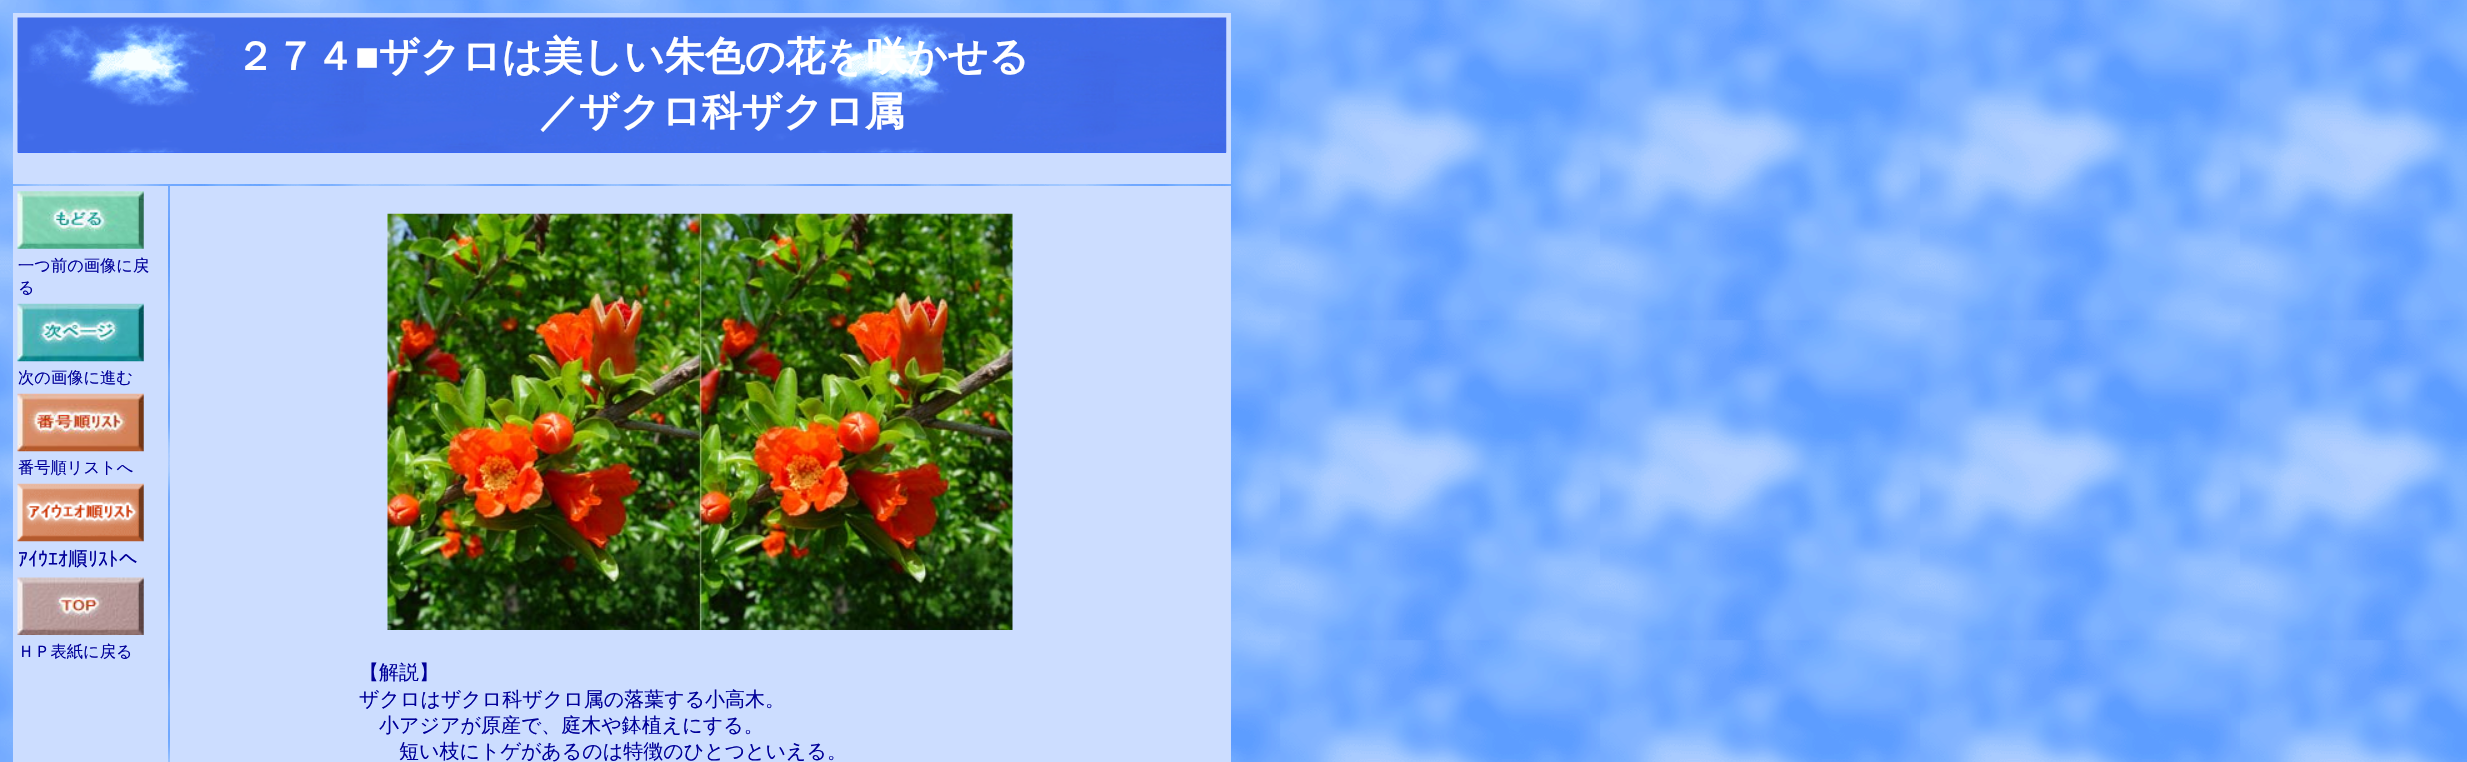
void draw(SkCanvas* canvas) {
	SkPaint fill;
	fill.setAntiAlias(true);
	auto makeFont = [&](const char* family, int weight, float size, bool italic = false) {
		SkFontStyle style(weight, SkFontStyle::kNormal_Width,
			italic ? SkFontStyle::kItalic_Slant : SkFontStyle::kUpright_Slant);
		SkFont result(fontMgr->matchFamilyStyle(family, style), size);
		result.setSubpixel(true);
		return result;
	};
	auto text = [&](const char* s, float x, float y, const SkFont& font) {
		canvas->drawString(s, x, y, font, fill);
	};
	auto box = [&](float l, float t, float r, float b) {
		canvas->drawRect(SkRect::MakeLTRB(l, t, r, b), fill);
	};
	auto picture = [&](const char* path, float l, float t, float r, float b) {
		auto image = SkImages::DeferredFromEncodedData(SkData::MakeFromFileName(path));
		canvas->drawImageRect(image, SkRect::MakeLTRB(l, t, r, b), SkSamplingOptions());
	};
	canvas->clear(0xFFFFFFFF);
	picture("image0.png", 0, 0, 2467, 762);
	fill.setColor(0xFFCCDDFF);
	box(13, 13, 1231, 184);
	fill.setColor(0xFF3366FF);
	box(18, 152, 1226, 153);
	picture("image1.png", 17, 17, 1227, 153);
	fill.setColor(0xFFCCDDFF);
	box(13, 186, 168, 762);
	picture("image2.png", 17, 191, 144, 249);
	picture("image3.png", 17, 303, 144, 362);
	picture("image4.png", 17, 393, 144, 452);
	picture("image5.png", 17, 483, 144, 542);
	picture("image6.png", 17, 577, 144, 635);
	box(170, 186, 1231, 762);
	picture("image7.png", 387, 213, 1013, 630);
	auto font1 = makeFont("WenQuanYi Zen Hei", 700, 40);
	fill.setColor(0xFFFFFFFF);
	text("２７４", 235, 70, font1);
	auto font2 = makeFont("Liberation Serif", 700, 40);
	text("■", 355, 70, font2);
	text("ザクロは美しい朱色の花を咲かせる", 379, 70, font1);
	text("／ザクロ科ザクロ属", 539, 125, font1);
	auto font3 = makeFont("WenQuanYi Zen Hei", 500, 16.25f);
	fill.setColor(0xFF000099);
	text("一つ前の画像に戻", 18, 271, font3);
	text("る", 18, 293, font3);
	text("次の画像に進む", 18, 383, font3);
	text("番号順リストへ", 18, 473, font3);
	auto font4 = makeFont("IPAGothic", 400, 20);
	text("ｱｲｳｴｵ順ﾘｽﾄへ", 18, 566, font4);
	text("ＨＰ表紙に戻る", 18, 657, font3);
	auto font5 = makeFont("WenQuanYi Zen Hei", 500, 20);
	text("【解説】", 359, 679, font5);
	text("ザクロはザクロ科ザクロ属の落葉する小高木。", 359, 706, font5);
	text("小アジアが原産で、庭木や鉢植えにする。", 379, 732, font5);
	text("短い枝にトゲがあるのは特徴のひとつといえる。", 399, 758, font5);
}
